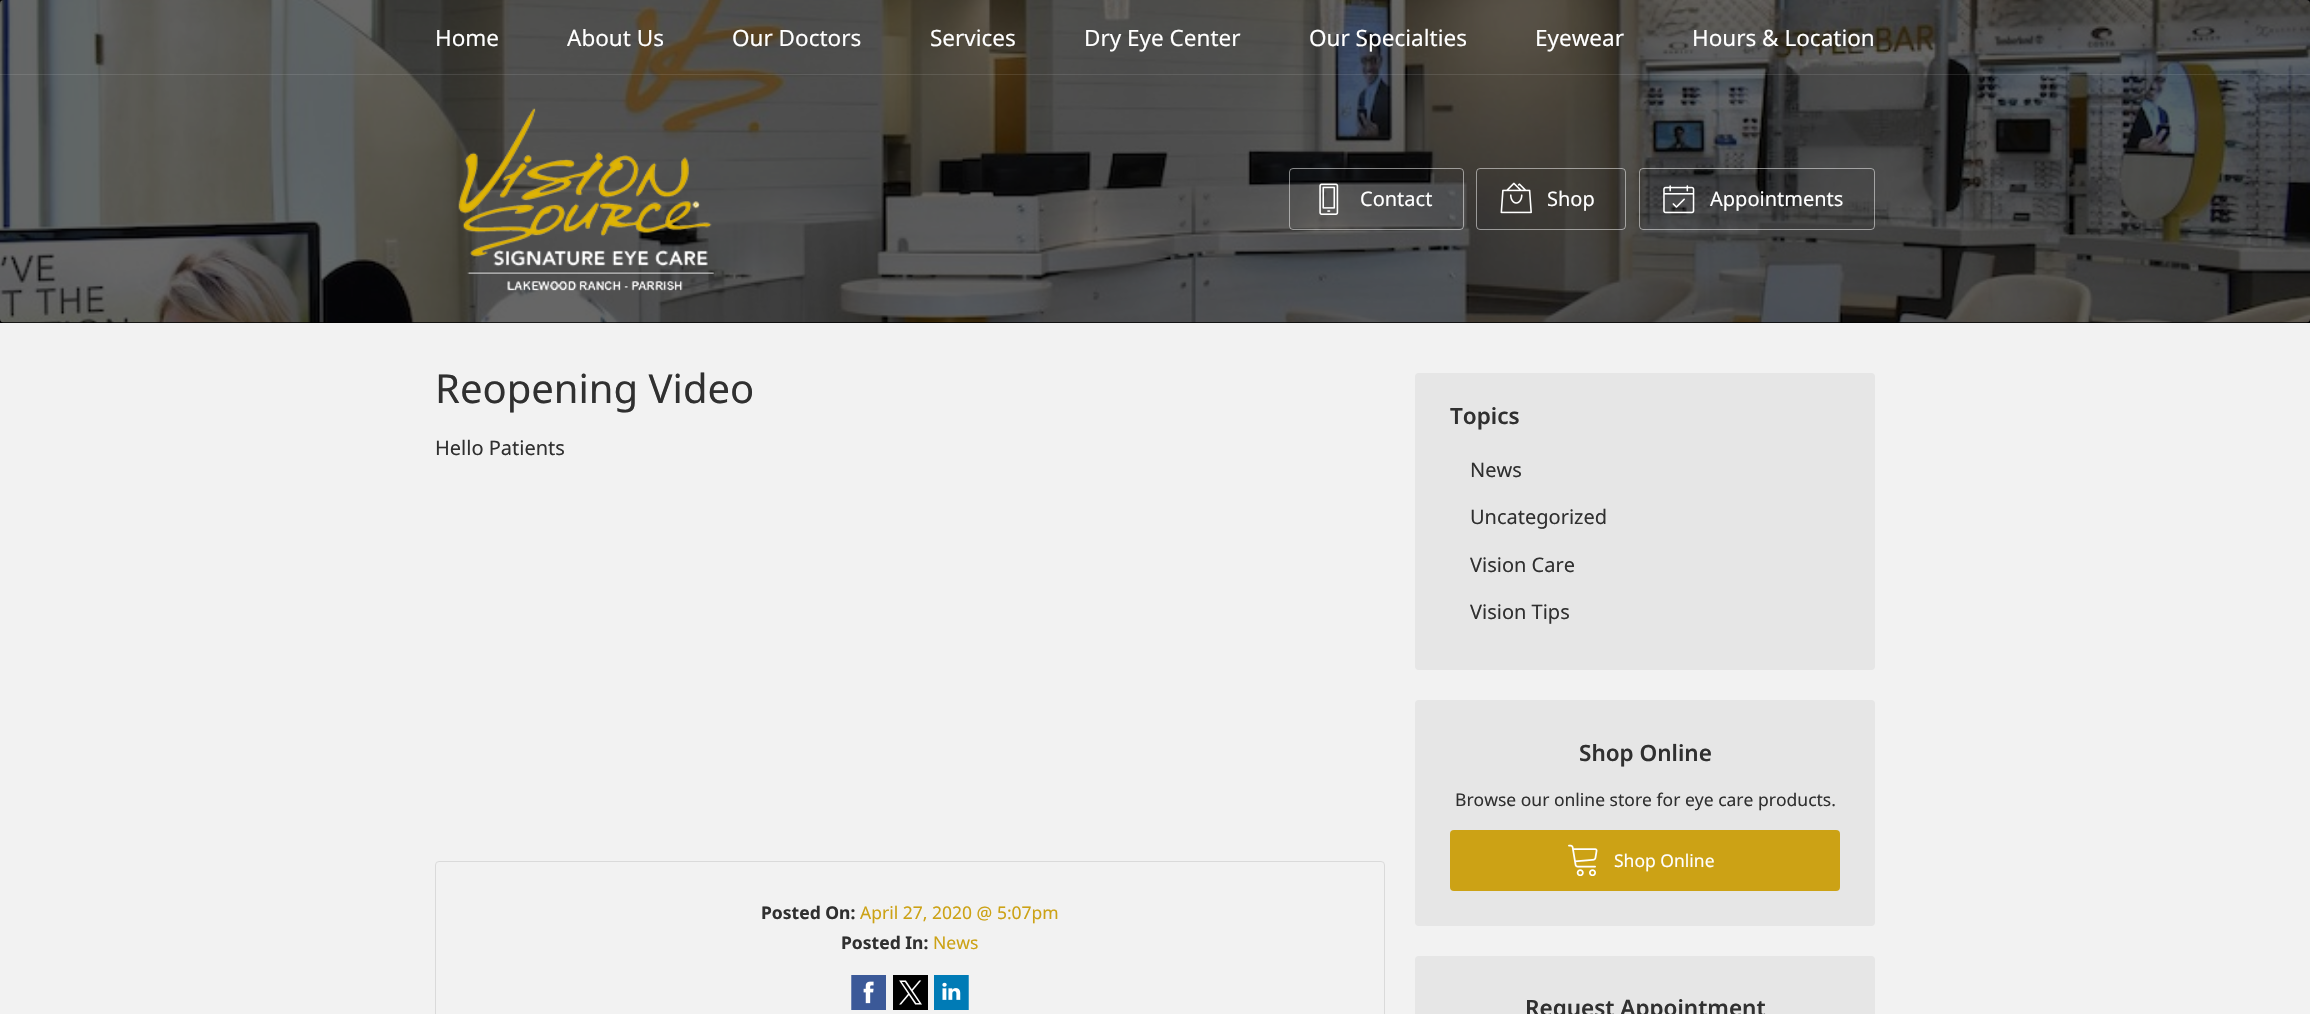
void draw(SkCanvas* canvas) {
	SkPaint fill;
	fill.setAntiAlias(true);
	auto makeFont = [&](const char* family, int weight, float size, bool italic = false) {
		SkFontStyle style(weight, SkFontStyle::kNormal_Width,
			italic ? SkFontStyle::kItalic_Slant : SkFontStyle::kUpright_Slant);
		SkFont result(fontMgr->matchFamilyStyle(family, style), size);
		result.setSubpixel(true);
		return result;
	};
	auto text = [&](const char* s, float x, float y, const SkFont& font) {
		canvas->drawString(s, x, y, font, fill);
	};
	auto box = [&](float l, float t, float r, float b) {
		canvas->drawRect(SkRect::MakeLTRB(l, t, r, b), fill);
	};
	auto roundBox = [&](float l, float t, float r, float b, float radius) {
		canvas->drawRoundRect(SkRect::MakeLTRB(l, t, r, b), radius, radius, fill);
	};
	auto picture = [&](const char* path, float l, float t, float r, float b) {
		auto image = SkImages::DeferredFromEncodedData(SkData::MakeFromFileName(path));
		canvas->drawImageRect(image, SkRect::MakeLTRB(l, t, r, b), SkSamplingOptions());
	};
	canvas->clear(0xFFF2F2F2);
	fill.setColor(0xFF000000);
	box(0, 0, 2310, 323);
	picture("image0.png", 0, 0, 2310, 323);
	fill.setColor(0x1AFFFFFF);
	box(0, 74, 2310, 75);
	picture("image1.png", 458, 108, 714, 291);
	fill.setColor(0x0D000000);
	box(1289, 168, 1464, 230);
	fill.setStyle(SkPaint::kStroke_Style);
	fill.setStrokeWidth(1);
	fill.setColor(0x80FFFFFF);
	canvas->drawRoundRect(SkRect::MakeLTRB(1289.5f, 168.5f, 1463.5f, 229.5f), 3.5f, 3.5f, fill);
	picture("image2.png", 1319, 183, 1339, 215);
	fill.setStyle(SkPaint::kFill_Style);
	fill.setColor(0x0D000000);
	box(1476, 168, 1626, 230);
	fill.setStyle(SkPaint::kStroke_Style);
	fill.setColor(0x80FFFFFF);
	canvas->drawRoundRect(SkRect::MakeLTRB(1476.5f, 168.5f, 1625.5f, 229.5f), 3.5f, 3.5f, fill);
	picture("image3.png", 1500, 182, 1532, 214);
	fill.setStyle(SkPaint::kFill_Style);
	fill.setColor(0x0D000000);
	box(1639, 168, 1875, 230);
	fill.setStyle(SkPaint::kStroke_Style);
	fill.setColor(0x80FFFFFF);
	canvas->drawRoundRect(SkRect::MakeLTRB(1639.5f, 168.5f, 1874.5f, 229.5f), 3.5f, 3.5f, fill);
	picture("image4.png", 1663, 185, 1695, 214);
	fill.setColor(0xFFDADADA);
	canvas->drawRoundRect(SkRect::MakeLTRB(435.5f, 861.5f, 1384.5f, 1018.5f), 3.5f, 3.5f, fill);
	fill.setStyle(SkPaint::kFill_Style);
	fill.setColor(0xFFFFFFFF);
	box(851, 975, 874, 1010);
	picture("image5.png", 851, 975, 886, 1010);
	picture("image6.png", 893, 975, 928, 1010);
	box(942, 975, 969, 1010);
	picture("image7.png", 934, 975, 969, 1010);
	fill.setColor(0xFFE6E6E6);
	roundBox(1415, 373, 1875, 670, 4);
	roundBox(1415, 700, 1875, 926, 4);
	fill.setColor(0xFFCCA215);
	roundBox(1450, 830, 1840, 891, 4);
	picture("image8.png", 1568, 844, 1598, 876);
	fill.setColor(0xFFE6E6E6);
	roundBox(1415, 956, 1875, 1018, 4);
	auto font1 = makeFont("Noto Sans", 400, 22.5f);
	fill.setColor(0xFFFFFFFF);
	text("Home", 435, 46, font1);
	text("About Us", 567, 46, font1);
	text("Our Doctors", 732, 46, font1);
	text("Services", 930, 46, font1);
	text("Dry Eye Center", 1084, 46, font1);
	text("Our Specialties", 1309, 46, font1);
	text("Eyewear", 1535, 46, font1);
	text("Hours & Location", 1692, 46, font1);
	auto font2 = makeFont("Noto Sans", 400, 20);
	text("Contact", 1360, 206, font2);
	text("Shop", 1547, 206, font2);
	text("Appointments", 1710, 206, font2);
	auto font3 = makeFont("Noto Sans", 400, 40);
	fill.setColor(0xFF303030);
	text("Reopening Video", 435, 403, font3);
	text("Hello Patients", 435, 455, font2);
	auto font4 = makeFont("Noto Sans", 700, 17.5f);
	text("Posted On:", 761, 919, font4);
	auto font5 = makeFont("Noto Sans", 400, 17.5f);
	fill.setColor(0xFFCCA215);
	text("April 27, 2020 @ 5:07pm", 860, 919, font5);
	fill.setColor(0xFF303030);
	text("Posted In:", 841, 949, font4);
	fill.setColor(0xFFCCA215);
	text("News", 933, 949, font5);
	auto font6 = makeFont("Noto Sans", 600, 22.5f);
	fill.setColor(0xFF303030);
	text("Topics", 1450, 424, font6);
	text("News", 1470, 477, font2);
	text("Uncategorized", 1470, 524, font2);
	text("Vision Care", 1470, 572, font2);
	text("Vision Tips", 1470, 619, font2);
	text("Shop Online", 1579, 761, font6);
	text("Browse our online store for eye care products.", 1455, 806, font5);
	fill.setColor(0xFFFFFFFF);
	text("Shop Online", 1614, 867, font5);
	fill.setColor(0xFF303030);
	text("Request Appointment", 1525, 1016, font6);
}
